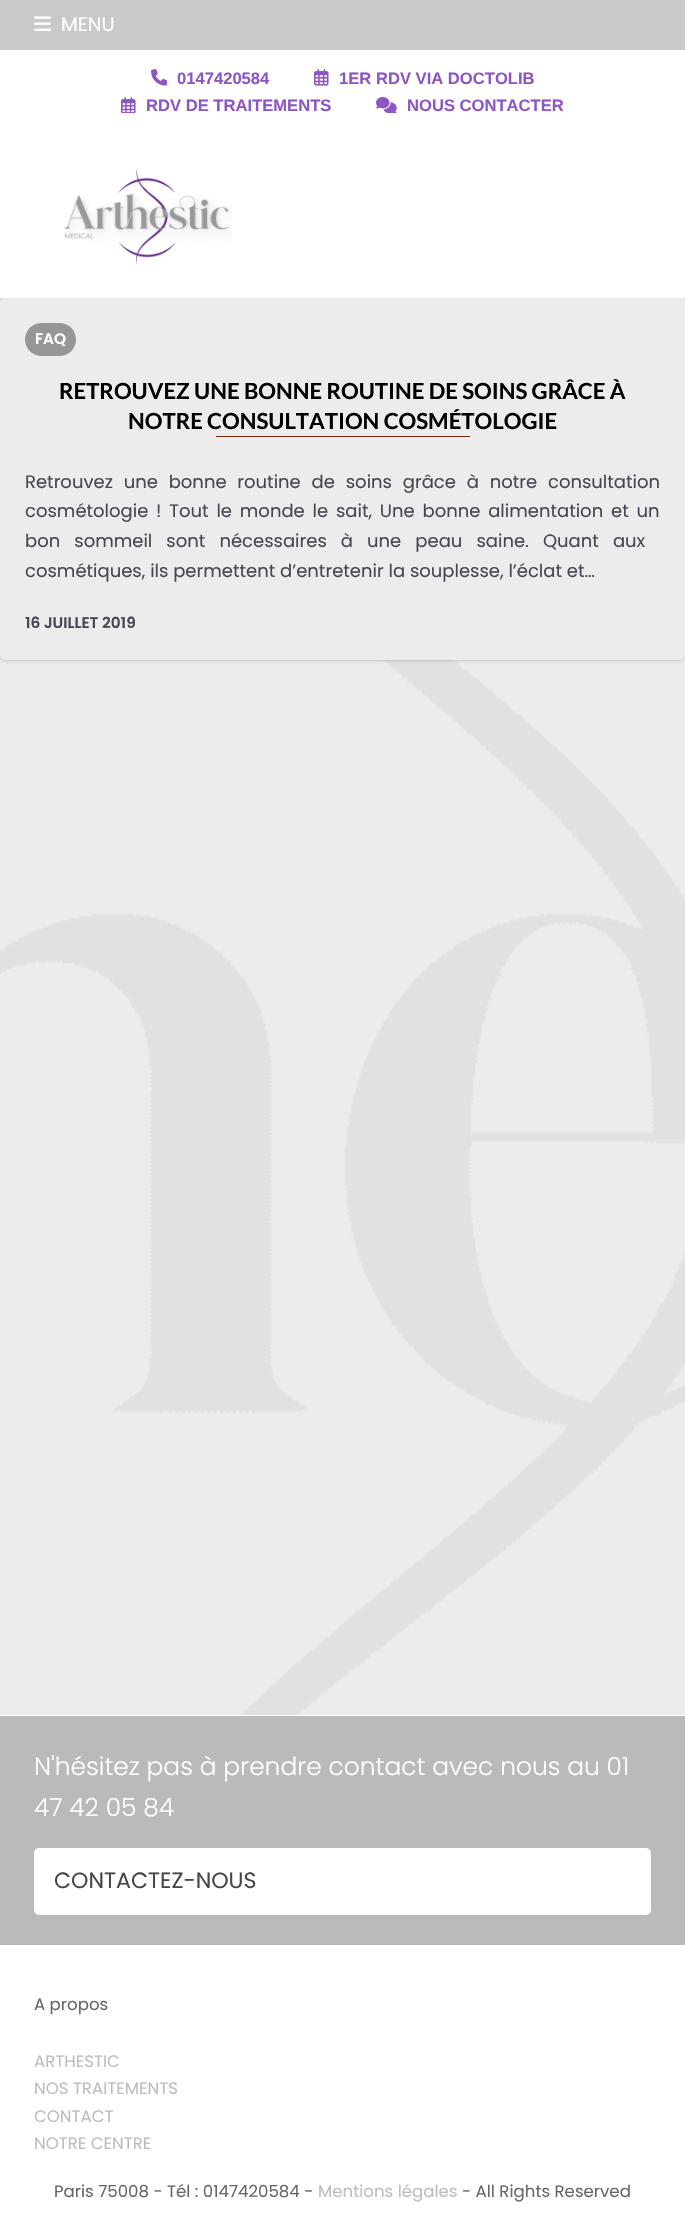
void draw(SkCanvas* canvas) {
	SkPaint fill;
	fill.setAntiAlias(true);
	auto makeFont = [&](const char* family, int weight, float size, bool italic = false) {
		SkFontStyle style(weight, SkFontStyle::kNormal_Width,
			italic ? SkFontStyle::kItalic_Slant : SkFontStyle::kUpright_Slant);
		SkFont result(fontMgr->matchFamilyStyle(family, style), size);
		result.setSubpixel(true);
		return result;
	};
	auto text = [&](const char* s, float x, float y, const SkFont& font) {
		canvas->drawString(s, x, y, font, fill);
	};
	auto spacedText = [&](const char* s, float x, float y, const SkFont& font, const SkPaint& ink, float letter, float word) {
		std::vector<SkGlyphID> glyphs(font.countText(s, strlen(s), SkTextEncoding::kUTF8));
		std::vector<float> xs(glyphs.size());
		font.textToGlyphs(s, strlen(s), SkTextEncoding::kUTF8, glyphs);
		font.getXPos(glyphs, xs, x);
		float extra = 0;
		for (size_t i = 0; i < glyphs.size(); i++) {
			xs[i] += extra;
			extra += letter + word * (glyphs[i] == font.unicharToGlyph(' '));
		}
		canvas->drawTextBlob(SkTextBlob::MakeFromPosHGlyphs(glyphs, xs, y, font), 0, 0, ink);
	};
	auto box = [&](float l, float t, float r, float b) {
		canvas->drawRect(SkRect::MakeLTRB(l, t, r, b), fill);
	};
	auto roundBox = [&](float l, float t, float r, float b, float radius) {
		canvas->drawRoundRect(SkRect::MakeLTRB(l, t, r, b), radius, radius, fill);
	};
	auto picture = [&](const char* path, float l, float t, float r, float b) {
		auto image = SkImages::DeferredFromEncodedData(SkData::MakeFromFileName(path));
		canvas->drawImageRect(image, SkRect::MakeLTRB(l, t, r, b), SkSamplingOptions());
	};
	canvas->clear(0xFFECECEC);
	picture("image0.png", 0, 298, 685, 1715);
	fill.setColor(0xFFC9C9C9);
	box(0, 0, 685, 50);
	picture("image1.png", 34, 16, 51, 31);
	fill.setColor(0xFFFFFFFF);
	box(0, 50, 685, 136);
	picture("image2.png", 151, 69, 167, 86);
	picture("image3.png", 314, 69, 329, 86);
	picture("image4.png", 121, 97, 136, 113);
	picture("image5.png", 376, 97, 397, 113);
	fill.setColor(0x0F000000);
	fill.setMaskFilter(SkMaskFilter::MakeBlur(kNormal_SkBlurStyle, 1));
	canvas->drawRoundRect(SkRect::MakeLTRB(0, 299, 685, 661), 5, 5, fill);
	fill.setMaskFilter(nullptr);
	fill.setColor(0x1A000000);
	fill.setMaskFilter(SkMaskFilter::MakeBlur(kNormal_SkBlurStyle, 1.5f));
	canvas->drawRoundRect(SkRect::MakeLTRB(0, 299, 685, 661), 5, 5, fill);
	fill.setMaskFilter(nullptr);
	fill.setColor(0xFFFFFFFF);
	box(0, 136, 685, 298);
	picture("image6.png", 64, 168, 232, 265);
	fill.setColor(0xFFECECEC);
	roundBox(0, 298, 685, 660, 5);
	fill.setColor(0xFF969696);
	roundBox(25, 323, 76, 356, 16.5f);
	fill.setColor(0xFF7C270D);
	box(216, 436, 470, 437);
	fill.setColor(0xFFBABABA);
	box(0, 1716, 685, 1945);
	fill.setColor(0xFFFFFFFF);
	box(0, 1715, 685, 1716);
	box(0, 1945, 685, 2220);
	roundBox(34, 1848, 651, 1915, 5);
	auto font1 = makeFont("Poppins", 400, 19.5f);
	text("MENU", 61, 31, font1);
	auto font2 = makeFont("Liberation Sans", 700, 16.6f);
	fill.setColor(0xFF8D56C4);
	text("0147420584", 177, 84, font2);
	text("1ER RDV VIA DOCTOLIB", 339, 84, font2);
	text("RDV DE TRAITEMENTS", 146, 111, font2);
	text("NOUS CONTACTER", 407, 111, font2);
	auto font3 = makeFont("Poppins", 600, 15.25f);
	fill.setColor(0xFFFFFFFF);
	text("FAQ", 35, 344, font3);
	auto font4 = makeFont("Lato", 700, 22.15f);
	fill.setColor(0xFF000000);
	text("RETROUVEZ UNE BONNE ROUTINE DE SOINS GRÂCE À", 59, 399, font4);
	text("NOTRE CONSULTATION COSMÉTOLOGIE", 128, 429, font4);
	auto font5 = makeFont("Poppins", 400, 18);
	fill.setColor(0xFF4A4554);
	spacedText("Retrouvez une bonne routine de soins grâce à notre consultation", 25, 488, font5, fill, 0, 6);
	spacedText("cosmétologie ! Tout le monde le sait, Une bonne alimentation et un", 25, 517, font5, fill, 0, 3);
	spacedText("bon sommeil sont nécessaires à une peau saine. Quant aux", 25, 547, font5, fill, 0, 9.25f);
	text("cosmétiques, ils permettent d’entretenir la souplesse, l’éclat et…", 25, 577, font5);
	text("16 JUILLET 2019", 25, 628, font3);
	auto font6 = makeFont("Poppins", 300, 24.9f);
	fill.setColor(0xFFFFFFFF);
	text("N'hésitez pas à prendre contact avec nous au 01", 34, 1775, font6);
	text("47 42 05 84", 34, 1816, font6);
	auto font7 = makeFont("Poppins", 400, 22.15f);
	fill.setColor(0xFF474747);
	text("CONTACTEZ-NOUS", 54, 1888, font7);
	auto font8 = makeFont("Poppins", 400, 16.6f);
	fill.setColor(0xFF666666);
	text("A propos", 34, 2010, font8);
	fill.setColor(0xFFBDBDBD);
	text("ARTHESTIC", 34, 2067, font8);
	text("NOS TRAITEMENTS", 34, 2094, font8);
	text("CONTACT", 34, 2122, font8);
	text("NOTRE CENTRE", 34, 2149, font8);
	fill.setColor(0xFF666666);
	text("Paris 75008 - Tél : 0147420584 -", 54, 2197, font8);
	fill.setColor(0xFFBDBDBD);
	text("Mentions légales", 318, 2197, font8);
	fill.setColor(0xFF666666);
	text("- All Rights Reserved", 462, 2197, font8);
}
